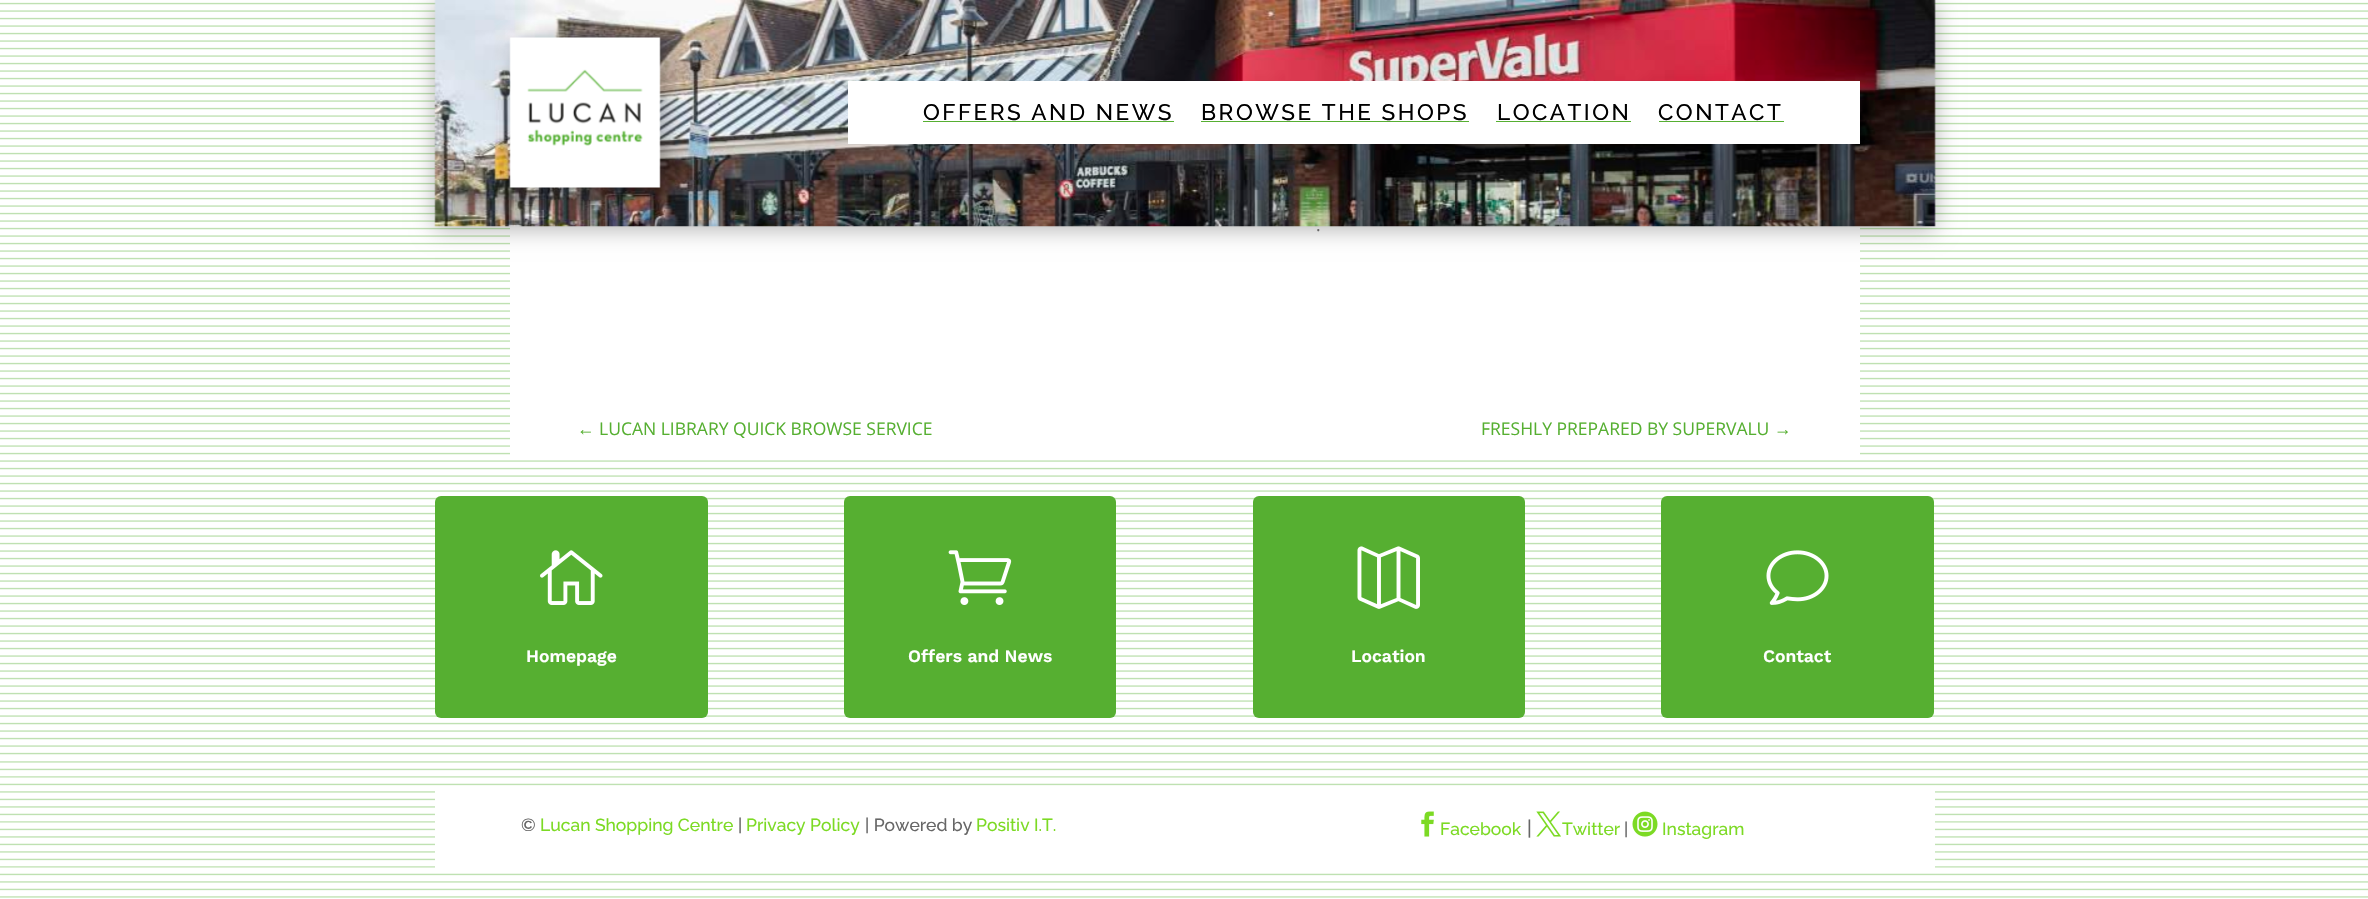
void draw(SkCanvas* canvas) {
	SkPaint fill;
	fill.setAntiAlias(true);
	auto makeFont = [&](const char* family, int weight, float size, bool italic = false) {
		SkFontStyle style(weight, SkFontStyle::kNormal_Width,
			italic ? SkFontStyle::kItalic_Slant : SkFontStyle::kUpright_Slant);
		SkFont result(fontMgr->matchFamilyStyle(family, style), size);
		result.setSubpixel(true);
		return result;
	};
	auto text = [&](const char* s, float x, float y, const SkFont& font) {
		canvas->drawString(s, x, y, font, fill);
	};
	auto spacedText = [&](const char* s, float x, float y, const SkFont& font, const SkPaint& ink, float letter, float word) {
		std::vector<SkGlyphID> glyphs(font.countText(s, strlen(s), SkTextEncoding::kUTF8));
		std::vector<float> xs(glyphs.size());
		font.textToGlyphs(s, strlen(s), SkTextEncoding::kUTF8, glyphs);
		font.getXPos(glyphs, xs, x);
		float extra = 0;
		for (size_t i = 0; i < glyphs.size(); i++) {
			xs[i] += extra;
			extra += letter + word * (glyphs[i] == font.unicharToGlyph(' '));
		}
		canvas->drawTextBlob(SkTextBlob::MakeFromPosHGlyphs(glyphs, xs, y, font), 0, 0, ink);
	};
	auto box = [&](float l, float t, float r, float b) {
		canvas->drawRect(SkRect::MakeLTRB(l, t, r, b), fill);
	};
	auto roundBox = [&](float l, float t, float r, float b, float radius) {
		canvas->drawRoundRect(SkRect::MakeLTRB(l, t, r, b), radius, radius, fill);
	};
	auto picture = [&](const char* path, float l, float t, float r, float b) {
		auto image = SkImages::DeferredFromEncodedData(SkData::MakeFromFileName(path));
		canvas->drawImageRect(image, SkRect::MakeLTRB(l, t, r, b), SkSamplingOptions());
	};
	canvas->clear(0xFFFFFFFF);
	picture("image0.png", 0, 760, 2368, 898);
	picture("image3.png", 0, 2, 2368, 755);
	fill.setColor(0xFFFFFFFF);
	box(510, 227, 1860, 455);
	fill.setColor(0x4D000000);
	fill.setMaskFilter(SkMaskFilter::MakeBlur(kNormal_SkBlurStyle, 11));
	canvas->drawRect(SkRect::MakeLTRB(435, 3, 1935, 229), fill);
	fill.setMaskFilter(nullptr);
	picture("image1.png", 434, 0, 1936, 227);
	fill.setMaskFilter(SkMaskFilter::MakeBlur(kNormal_SkBlurStyle, 11));
	canvas->drawRect(SkRect::MakeLTRB(516, 44, 666, 194), fill);
	fill.setMaskFilter(nullptr);
	picture("image2.png", 509, 37, 661, 188);
	fill.setColor(0xFFFFFFFF);
	box(848, 81, 1860, 144);
	fill.setColor(0xFF56AF31);
	box(923, 121, 1174, 122);
	box(1201, 121, 1469, 122);
	box(1496, 121, 1631, 122);
	box(1659, 121, 1784, 122);
	roundBox(435, 496, 708, 718, 6);
	picture("image4.png", 540, 550, 603, 605);
	roundBox(844, 496, 1116, 718, 6);
	picture("image5.png", 948, 550, 1012, 605);
	roundBox(1253, 496, 1525, 718, 6);
	picture("image6.png", 1357, 546, 1420, 609);
	roundBox(1661, 496, 1934, 718, 6);
	picture("image7.png", 1766, 550, 1829, 605);
	fill.setColor(0xFFFFFFFF);
	box(435, 791, 1935, 868);
	picture("image8.png", 1421, 811, 1434, 837);
	picture("image9.png", 1536, 811, 1561, 837);
	picture("image10.png", 1632, 811, 1658, 837);
	auto font1 = makeFont("Raleway", 100, 22.5f);
	fill.setColor(0xFF000000);
	spacedText("OFFERS AND NEWS", 923, 120, font1, fill, 2.5f, 0);
	spacedText("BROWSE THE SHOPS", 1201, 120, font1, fill, 2.5f, 0);
	spacedText("LOCATION", 1497, 120, font1, fill, 2.5f, 0);
	spacedText("CONTACT", 1658, 120, font1, fill, 2.5f, 0);
	auto font2 = makeFont("Open Sans", 400, 17.5f);
	fill.setColor(0xFF666666);
	text(".", 1316, 231, font2);
	auto font3 = makeFont("Liberation Sans", 400, 17.5f);
	fill.setColor(0xFF56AF31);
	text("←", 577, 435, font3);
	text("LUCAN LIBRARY QUICK BROWSE SERVICE", 599, 435, font2);
	text("FRESHLY PREPARED BY SUPERVALU", 1481, 435, font2);
	text("→", 1774, 435, font3);
	auto font4 = makeFont("Work Sans", 600, 17.5f);
	fill.setColor(0xFFFFFFFF);
	text("Homepage", 526, 662, font4);
	text("Offers and News", 908, 662, font4);
	text("Location", 1351, 662, font4);
	text("Contact", 1763, 662, font4);
	auto font5 = makeFont("Raleway", 100, 17.5f);
	fill.setColor(0xFF666666);
	text("©", 521, 831, font5);
	fill.setColor(0xFF7CDA24);
	text("Lucan Shopping Centre", 540, 831, font5);
	fill.setColor(0xFF666666);
	text("|", 738, 831, font5);
	fill.setColor(0xFF7CDA24);
	text("Privacy Policy", 746, 831, font5);
	fill.setColor(0xFF666666);
	text("| Powered by", 865, 831, font5);
	fill.setColor(0xFF7CDA24);
	text("Positiv I.T.", 976, 831, font5);
	text("Facebook", 1440, 835, font5);
	auto font6 = makeFont("Raleway", 100, 20);
	fill.setColor(0xFF666666);
	text("|", 1527, 835, font6);
	fill.setColor(0xFF7CDA24);
	text("Twitter", 1562, 835, font5);
	fill.setColor(0xFF666666);
	text("|", 1624, 835, font5);
	fill.setColor(0xFF7CDA24);
	text("Instagram", 1662, 835, font5);
}
